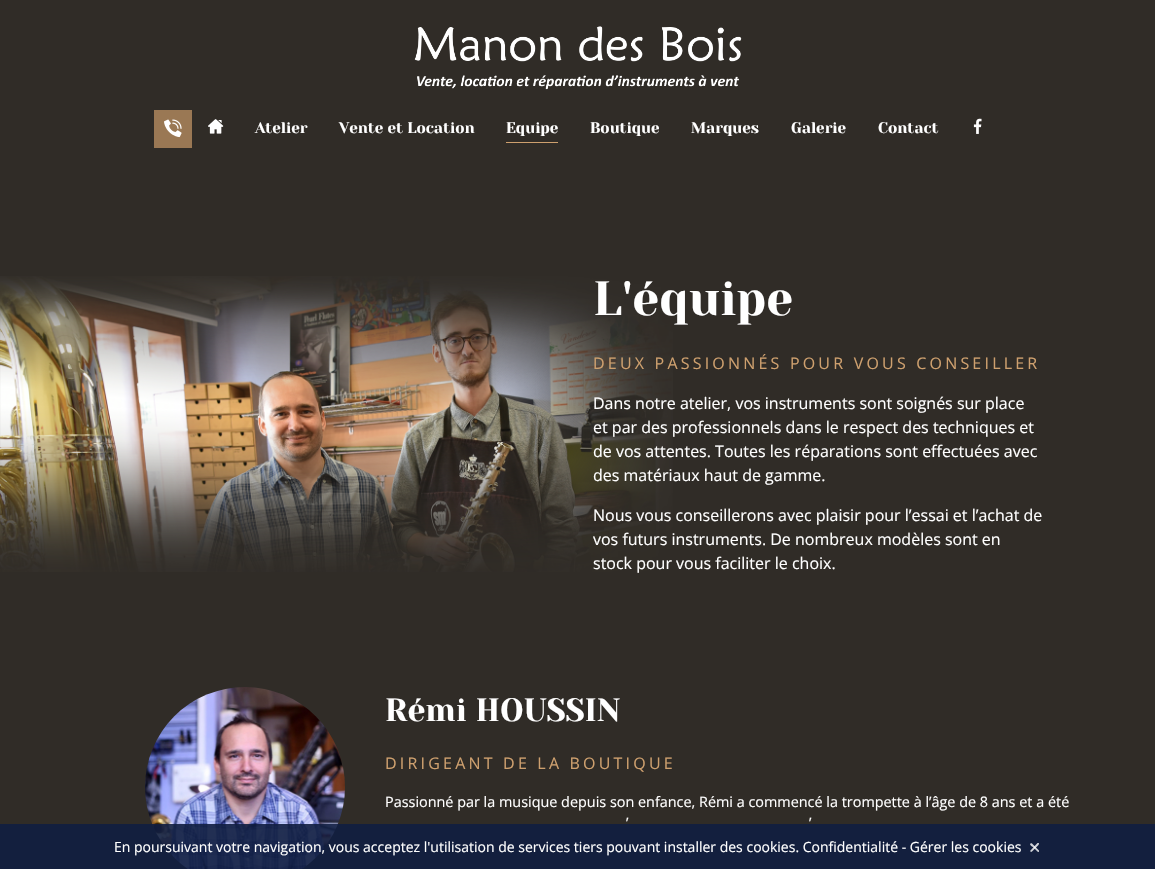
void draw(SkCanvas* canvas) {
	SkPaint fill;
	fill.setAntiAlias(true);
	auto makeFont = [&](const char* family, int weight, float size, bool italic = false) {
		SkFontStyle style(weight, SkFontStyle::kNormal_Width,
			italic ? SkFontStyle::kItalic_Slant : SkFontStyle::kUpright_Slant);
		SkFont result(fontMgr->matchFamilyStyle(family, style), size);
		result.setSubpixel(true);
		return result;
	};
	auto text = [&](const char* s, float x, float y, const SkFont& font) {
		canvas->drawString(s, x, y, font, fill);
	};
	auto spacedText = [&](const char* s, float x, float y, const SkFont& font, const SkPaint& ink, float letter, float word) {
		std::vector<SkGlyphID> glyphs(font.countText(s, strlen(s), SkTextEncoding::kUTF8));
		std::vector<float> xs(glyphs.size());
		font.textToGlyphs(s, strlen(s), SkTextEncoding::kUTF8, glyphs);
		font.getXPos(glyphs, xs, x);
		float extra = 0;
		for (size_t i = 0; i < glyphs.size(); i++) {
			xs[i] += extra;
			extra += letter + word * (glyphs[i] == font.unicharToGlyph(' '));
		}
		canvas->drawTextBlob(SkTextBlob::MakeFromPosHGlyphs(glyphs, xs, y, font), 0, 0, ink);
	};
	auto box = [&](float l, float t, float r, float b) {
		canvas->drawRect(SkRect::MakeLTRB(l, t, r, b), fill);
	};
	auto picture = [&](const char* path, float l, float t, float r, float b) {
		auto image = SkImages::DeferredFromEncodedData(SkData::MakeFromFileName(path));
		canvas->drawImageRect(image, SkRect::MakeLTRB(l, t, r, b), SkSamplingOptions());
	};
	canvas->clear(0xFF302C27);
	picture("image0.png", 414, 26, 742, 90);
	fill.setColor(0xFF9A7854);
	box(154, 110, 192, 148);
	picture("image1.png", 164, 119, 182, 138);
	picture("image2.png", 208, 119, 224, 134);
	fill.setColor(0xFFCEA06E);
	box(506, 142, 558, 143);
	picture("image3.png", 973, 118, 982, 134);
	picture("image4.png", 0, 276, 673, 572);
	picture("image5.png", 145, 687, 345, 869);
	fill.setColor(0xE6101D40);
	box(0, 824, 1155, 869);
	fill.setColor(0xCCFFFFFF);
	canvas->drawPath(SkPathBuilder().moveTo(1032, 843.5f).lineTo(1039, 850.5f).lineTo(1039, 851.5f).cubicTo(1038.5f, 853, 1037, 851, 1036.5f, 850.5f).lineTo(1033, 847).cubicTo(1032, 846.5f, 1029, 844.5f, 1030.5f, 843.5f).cubicTo(1031, 843, 1031.5f, 843, 1032, 843.5f).close().detach(), fill);
	canvas->drawPath(SkPathBuilder().moveTo(1030.5f, 850.5f).lineTo(1037.5f, 843).lineTo(1038.5f, 843).cubicTo(1040, 843.5f, 1038, 845.5f, 1037.5f, 846).lineTo(1034, 849.5f).cubicTo(1033.5f, 850, 1031.5f, 853, 1030.5f, 851.5f).cubicTo(1030, 851.5f, 1030, 850.5f, 1030.5f, 850.5f).close().detach(), fill);
	auto font1 = makeFont("Yeseva One", 400, 15.25f);
	fill.setColor(0xFFFFFFFF);
	text("Atelier", 255, 133, font1);
	text("Vente et Location", 339, 133, font1);
	text("Equipe", 506, 133, font1);
	text("Boutique", 590, 133, font1);
	text("Marques", 691, 133, font1);
	text("Galerie", 791, 133, font1);
	text("Contact", 878, 133, font1);
	auto font2 = makeFont("Yeseva One", 400, 48);
	text("L'équipe", 593, 315, font2);
	auto font3 = makeFont("Open Sans", 400, 16);
	fill.setColor(0xFFCEA06E);
	spacedText("DEUX PASSIONNÉS POUR VOUS CONSEILLER", 593, 369, font3, fill, 3.2f, 0);
	fill.setColor(0xFFFFFFFF);
	text("Dans notre atelier, vos instruments sont soignés sur place", 593, 409, font3);
	text("et par des professionnels dans le respect des techniques et", 593, 433, font3);
	text("de vos attentes. Toutes les réparations sont effectuées avec", 593, 457, font3);
	text("des matériaux haut de gamme.", 593, 481, font3);
	text("Nous vous conseillerons avec plaisir pour l’essai et l’achat de", 593, 521, font3);
	text("vos futurs instruments. De nombreux modèles sont en", 593, 545, font3);
	text("stock pour vous faciliter le choix.", 593, 569, font3);
	auto font4 = makeFont("Yeseva One", 400, 32);
	text("Rémi HOUSSIN", 385, 721, font4);
	fill.setColor(0xFFCEA06E);
	spacedText("DIRIGEANT DE LA BOUTIQUE", 385, 769, font3, fill, 3.2f, 0);
	auto font5 = makeFont("Open Sans", 400, 14.4f);
	fill.setColor(0xFFFFFFFF);
	text("Passionné par la musique depuis son enfance, Rémi a commencé la trompette à l’âge de 8 ans et a été", 385, 807, font5);
	text("’", 626, 828, font5);
	text("’", 809, 828, font5);
	auto font6 = makeFont("Open Sans", 400, 14);
	text("En poursuivant votre navigation, vous acceptez l'utilisation de services tiers pouvant installer des cookies. Confidentialité - Gérer les cookies", 114, 852, font6);
}
